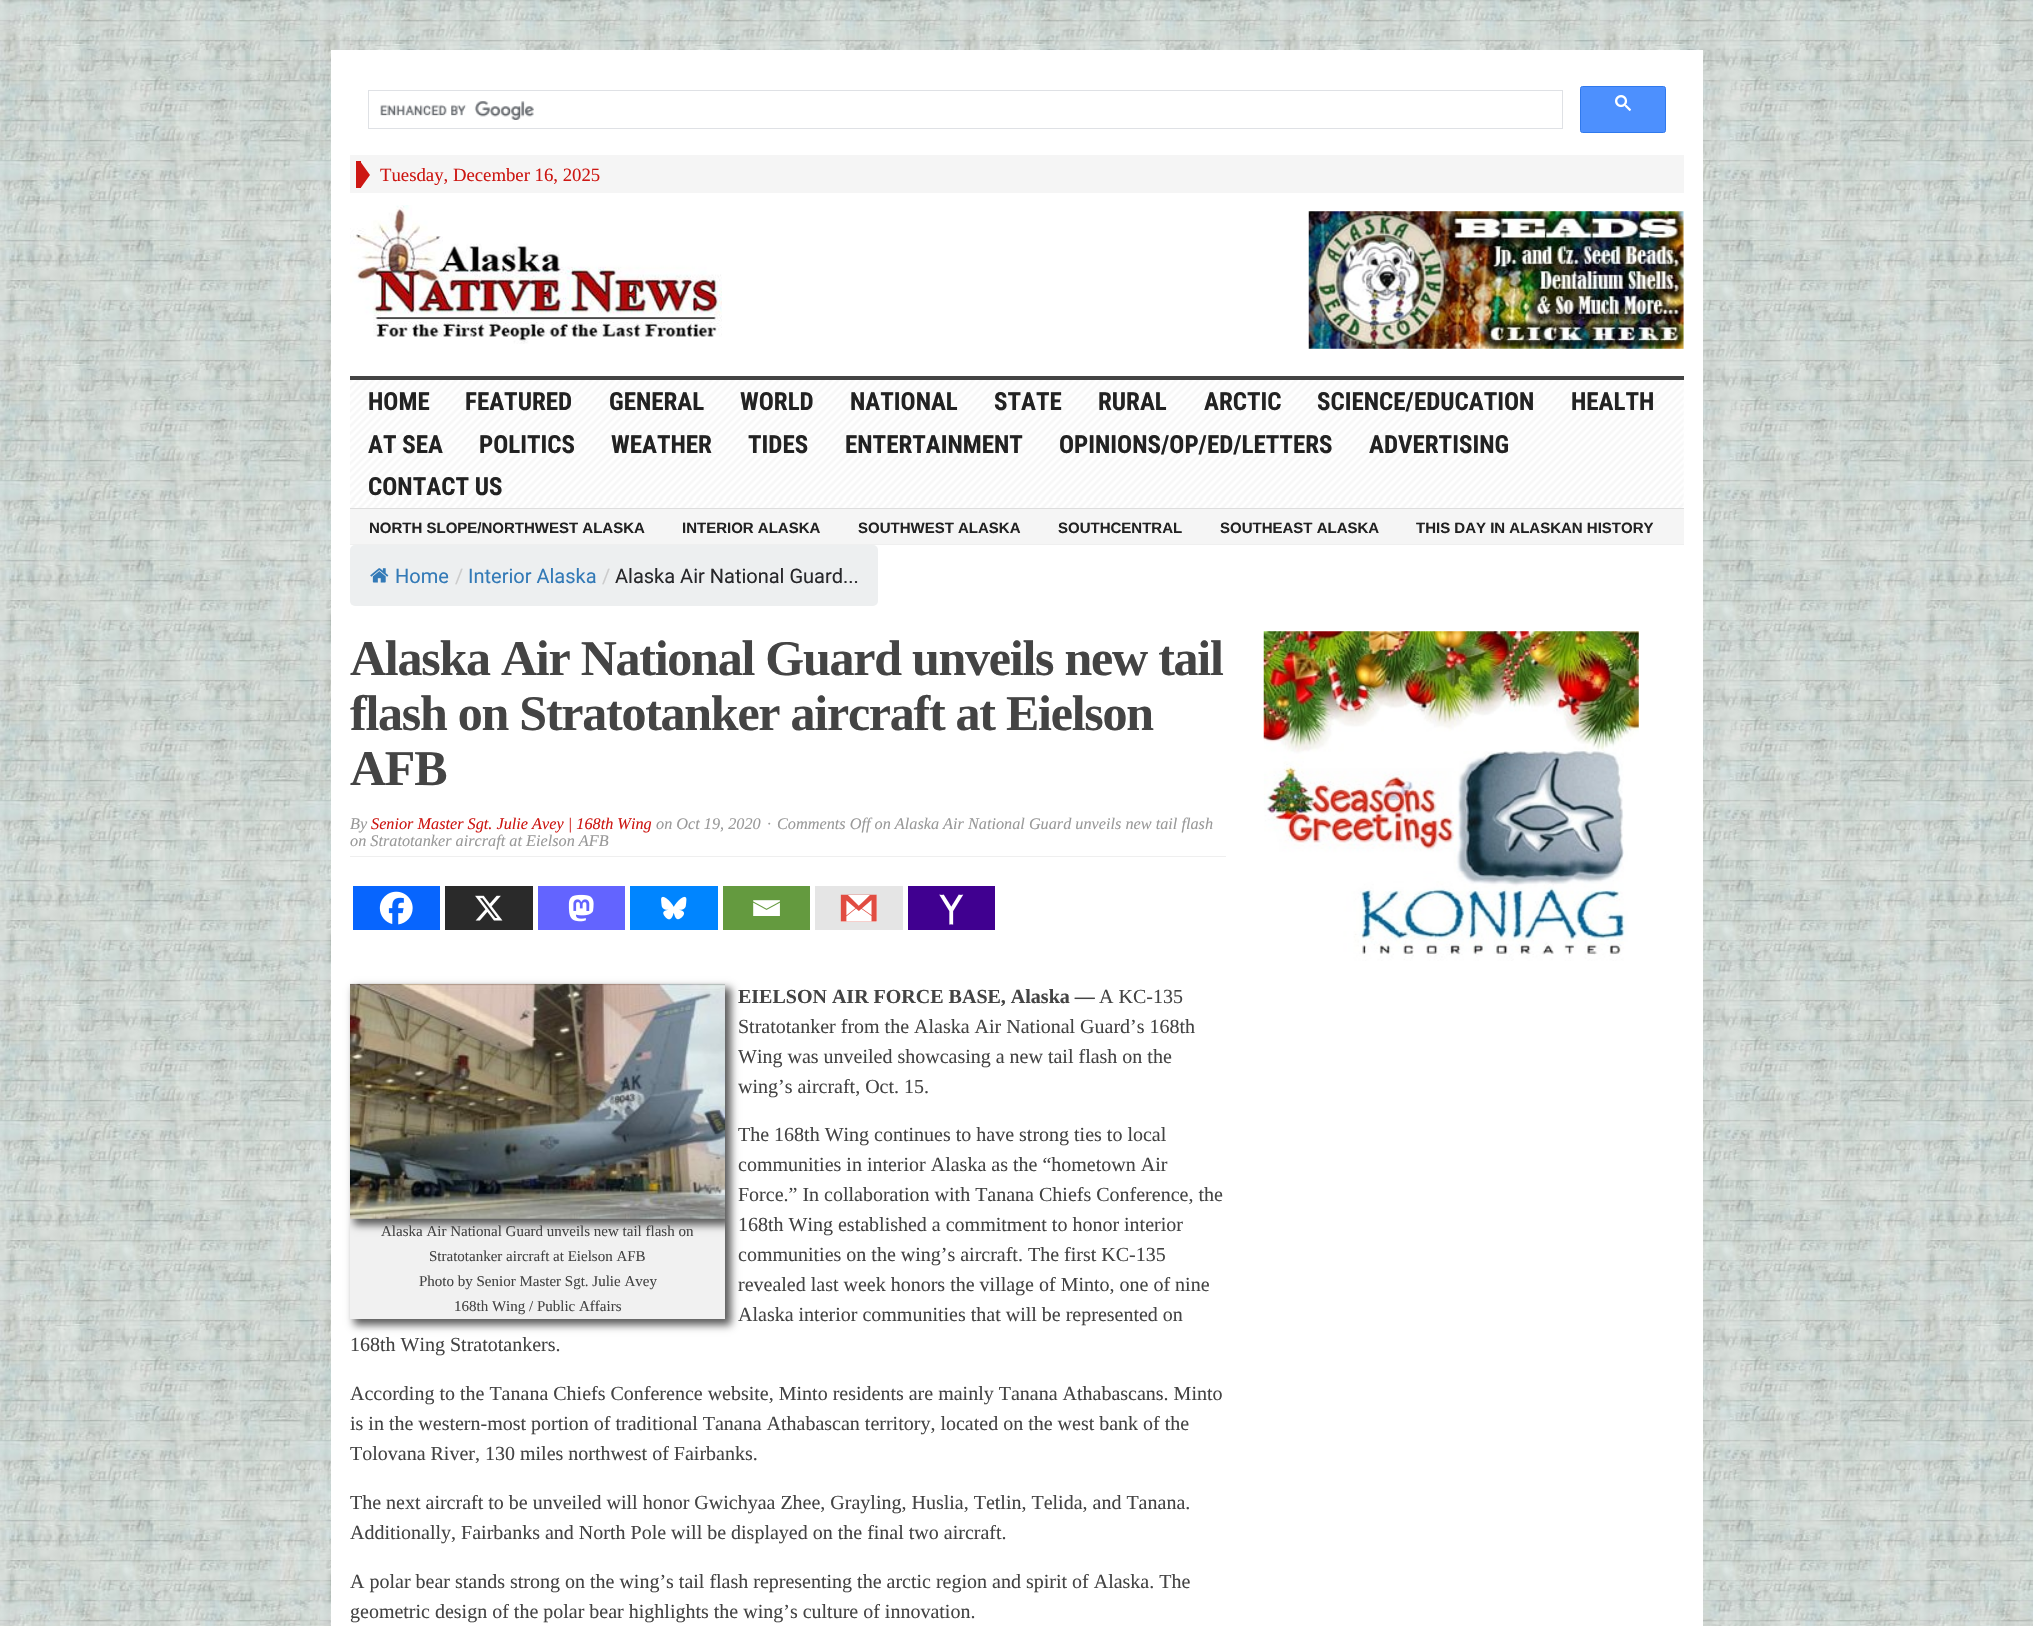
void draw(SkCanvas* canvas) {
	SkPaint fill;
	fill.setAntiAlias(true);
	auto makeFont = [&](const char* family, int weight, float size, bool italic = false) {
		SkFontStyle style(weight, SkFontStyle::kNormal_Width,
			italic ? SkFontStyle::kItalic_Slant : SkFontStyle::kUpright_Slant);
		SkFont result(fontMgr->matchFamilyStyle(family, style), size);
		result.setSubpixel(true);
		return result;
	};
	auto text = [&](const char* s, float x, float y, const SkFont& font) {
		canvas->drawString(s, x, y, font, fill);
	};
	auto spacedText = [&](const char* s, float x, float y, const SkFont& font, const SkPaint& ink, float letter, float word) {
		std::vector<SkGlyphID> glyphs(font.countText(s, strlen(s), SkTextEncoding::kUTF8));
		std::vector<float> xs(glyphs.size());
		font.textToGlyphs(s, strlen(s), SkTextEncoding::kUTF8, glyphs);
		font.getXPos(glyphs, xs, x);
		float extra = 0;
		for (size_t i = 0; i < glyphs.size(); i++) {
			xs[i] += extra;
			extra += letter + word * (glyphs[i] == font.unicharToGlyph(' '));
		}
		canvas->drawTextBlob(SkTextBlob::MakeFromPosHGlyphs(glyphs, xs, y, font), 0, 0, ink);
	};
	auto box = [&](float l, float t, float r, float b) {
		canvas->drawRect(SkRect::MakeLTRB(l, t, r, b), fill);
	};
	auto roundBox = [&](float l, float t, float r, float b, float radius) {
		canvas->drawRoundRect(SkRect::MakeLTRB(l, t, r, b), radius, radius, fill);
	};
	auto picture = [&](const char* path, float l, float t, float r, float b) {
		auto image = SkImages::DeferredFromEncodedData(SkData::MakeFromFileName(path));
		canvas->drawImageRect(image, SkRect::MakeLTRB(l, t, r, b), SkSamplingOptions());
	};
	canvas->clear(0xFFFFFFFF);
	picture("image0.png", 0, 0, 2033, 1626);
	fill.setColor(0xFFFFFFFF);
	box(331, 50, 1703, 1626);
	fill.setStyle(SkPaint::kStroke_Style);
	fill.setStrokeWidth(1);
	fill.setColor(0xFFDFE1E5);
	canvas->drawRect(SkRect::MakeLTRB(368.5f, 90.5f, 1562.5f, 128.5f), fill);
	picture("image1.png", 380, 101, 534, 120);
	fill.setStyle(SkPaint::kFill_Style);
	fill.setColor(0xFF4D90FE);
	canvas->drawRoundRect(SkRect::MakeLTRB(1580.5f, 86.5f, 1665.5f, 132.5f), 2, 2, fill);
	fill.setStyle(SkPaint::kStroke_Style);
	fill.setColor(0xFF3079ED);
	canvas->drawRoundRect(SkRect::MakeLTRB(1580.5f, 86.5f, 1665.5f, 132.5f), 2, 2, fill);
	picture("image2.png", 1615, 95, 1631, 111);
	fill.setStyle(SkPaint::kFill_Style);
	fill.setColor(0xFFF5F5F5);
	box(350, 155, 1684, 193);
	fill.setColor(0xFFCD1713);
	box(356, 161, 361, 188);
	canvas->drawPath(SkPathBuilder().moveTo(361, 187.5f).lineTo(361, 162.5f).lineTo(370, 175).close().detach(), fill);
	fill.setColor(0xFF444444);
	box(350, 376, 1684, 380);
	picture("image3.png", 350, 205, 722, 344);
	picture("image4.png", 1308, 211, 1684, 349);
	picture("image5.png", 350, 380, 1684, 508);
	fill.setColor(0xFFDDDDDD);
	box(350, 508, 1684, 509);
	fill.setColor(0xFFF5F5F5);
	box(350, 509, 1684, 544);
	fill.setColor(0xFFEFEFEF);
	box(350, 544, 1684, 545);
	fill.setColor(0xFFEDEFF0);
	roundBox(350, 545, 878, 606, 5);
	picture("image6.png", 370, 568, 389, 583);
	fill.setColor(0xFFEFEFEF);
	box(350, 856, 1226, 857);
	fill.setColor(0xFF0765FE);
	box(353, 886, 440, 930);
	picture("image7.png", 379, 891, 413, 925);
	fill.setColor(0xFF2A2A2A);
	box(445, 886, 533, 930);
	picture("image8.png", 475, 895, 503, 921);
	fill.setColor(0xFF6364FF);
	box(538, 886, 625, 930);
	picture("image9.png", 568, 894, 594, 922);
	fill.setColor(0xFF0085FF);
	box(630, 886, 718, 930);
	picture("image10.png", 661, 896, 687, 920);
	fill.setColor(0xFF649A3F);
	box(723, 886, 810, 930);
	picture("image11.png", 753, 900, 780, 916);
	fill.setColor(0xFFE5E5E5);
	box(815, 886, 903, 930);
	picture("image12.png", 840, 894, 877, 922);
	fill.setColor(0xFF400090);
	box(908, 886, 995, 930);
	picture("image13.png", 939, 894, 964, 925);
	fill.setColor(0xFF5B5B5B);
	fill.setMaskFilter(SkMaskFilter::MakeBlur(kNormal_SkBlurStyle, 4));
	canvas->drawRect(SkRect::MakeLTRB(354, 988, 731, 1325), fill);
	fill.setMaskFilter(nullptr);
	fill.setColor(0xFFF1F1F1);
	box(350, 1218, 725, 1319);
	canvas->save();
	canvas->clipRect(SkRect::MakeLTRB(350, 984, 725, 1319));
	fill.setColor(0xFF5B5B5B);
	fill.setMaskFilter(SkMaskFilter::MakeBlur(kNormal_SkBlurStyle, 4));
	canvas->drawRect(SkRect::MakeLTRB(354, 988, 731, 1225), fill);
	fill.setMaskFilter(nullptr);
	canvas->restore();
	picture("image14.png", 350, 983, 725, 1219);
	picture("image15.png", 1263, 631, 1639, 961);
	auto font1 = makeFont("Liberation Serif", 400, 18.75f);
	fill.setColor(0xFFCD1713);
	text("Tuesday, December 16, 2025", 380, 181, font1);
	auto font2 = makeFont("Roboto Condensed", 700, 25);
	fill.setColor(0xFF222222);
	text("HOME", 368, 410, font2);
	text("FEATURED", 465, 410, font2);
	text("GENERAL", 609, 410, font2);
	text("WORLD", 740, 410, font2);
	text("NATIONAL", 850, 410, font2);
	text("STATE", 994, 410, font2);
	text("RURAL", 1098, 410, font2);
	text("ARCTIC", 1204, 410, font2);
	text("SCIENCE/EDUCATION", 1317, 410, font2);
	text("HEALTH", 1571, 410, font2);
	text("AT SEA", 368, 453, font2);
	text("POLITICS", 479, 453, font2);
	text("WEATHER", 611, 453, font2);
	text("TIDES", 748, 453, font2);
	text("ENTERTAINMENT", 845, 453, font2);
	text("OPINIONS/OP/ED/LETTERS", 1059, 453, font2);
	text("ADVERTISING", 1369, 453, font2);
	text("CONTACT US", 368, 495, font2);
	auto font3 = makeFont("Liberation Sans", 700, 15);
	text("NORTH SLOPE/NORTHWEST ALASKA", 369, 533, font3);
	text("INTERIOR ALASKA", 682, 533, font3);
	text("SOUTHWEST ALASKA", 858, 533, font3);
	text("SOUTHCENTRAL", 1058, 533, font3);
	text("SOUTHEAST ALASKA", 1220, 533, font3);
	text("THIS DAY IN ALASKAN HISTORY", 1416, 533, font3);
	auto font4 = makeFont("Roboto", 400, 20);
	fill.setColor(0xFF337AB7);
	text("Home", 395, 583, font4);
	fill.setColor(0xFFCCCCCC);
	text("/", 455, 583, font4);
	fill.setColor(0xFF337AB7);
	text("Interior Alaska", 468, 583, font4);
	fill.setColor(0xFFCCCCCC);
	text("/", 602, 583, font4);
	fill.setColor(0xFF27272A);
	text("Alaska Air National Guard...", 615, 583, font4);
	auto font5 = makeFont("Liberation Serif", 700, 50);
	fill.setColor(0xFF444444);
	spacedText("Alaska Air National Guard unveils new tail", 350, 675, font5, fill, -1.25f, 0);
	spacedText("flash on Stratotanker aircraft at Eielson", 350, 730, font5, fill, -1.25f, 0);
	spacedText("AFB", 350, 785, font5, fill, -1.25f, 0);
	auto font6 = makeFont("Liberation Serif", 400, 16.25f, true);
	fill.setColor(0xFF999999);
	text("By", 350, 829, font6);
	fill.setColor(0xFFCD1713);
	text("Senior Master Sgt. Julie Avey | 168th Wing", 371, 829, font6);
	fill.setColor(0xFF999999);
	text("on Oct 19, 2020", 656, 829, font6);
	text("·", 767, 829, font6);
	text("Comments Off on Alaska Air National Guard unveils new tail flash", 777, 829, font6);
	text("on Stratotanker aircraft at Eielson AFB", 350, 846, font6);
	auto font7 = makeFont("Liberation Serif", 700, 20);
	fill.setColor(0xFF444444);
	text("EIELSON AIR FORCE BASE, Alaska —", 738, 1003, font7);
	auto font8 = makeFont("Liberation Serif", 400, 20);
	text("A KC-135", 1099, 1003, font8);
	text("Stratotanker from the Alaska Air National Guard’s 168th", 738, 1033, font8);
	text("Wing was unveiled showcasing a new tail flash on the", 738, 1063, font8);
	text("wing’s aircraft, Oct. 15.", 738, 1093, font8);
	text("The 168th Wing continues to have strong ties to local", 738, 1141, font8);
	text("communities in interior Alaska as the “hometown Air", 738, 1171, font8);
	text("Force.” In collaboration with Tanana Chiefs Conference, the", 738, 1201, font8);
	text("168th Wing established a commitment to honor interior", 738, 1231, font8);
	text("communities on the wing’s aircraft. The first KC-135", 738, 1261, font8);
	text("revealed last week honors the village of Minto, one of nine", 738, 1291, font8);
	text("Alaska interior communities that will be represented on", 738, 1321, font8);
	text("168th Wing Stratotankers.", 350, 1351, font8);
	auto font9 = makeFont("Liberation Serif", 400, 15);
	text("Alaska Air National Guard unveils new tail flash on", 381, 1236, font9);
	text("Stratotanker aircraft at Eielson AFB", 429, 1261, font9);
	text("Photo by Senior Master Sgt. Julie Avey", 419, 1286, font9);
	text("168th Wing / Public Affairs", 454, 1311, font9);
	text("According to the Tanana Chiefs Conference website, Minto residents are mainly Tanana Athabascans. Minto", 350, 1400, font8);
	text("is in the western-most portion of traditional Tanana Athabascan territory, located on the west bank of the", 350, 1430, font8);
	text("Tolovana River, 130 miles northwest of Fairbanks.", 350, 1460, font8);
	text("The next aircraft to be unveiled will honor Gwichyaa Zhee, Grayling, Huslia, Tetlin, Telida, and Tanana.", 350, 1509, font8);
	text("Additionally, Fairbanks and North Pole will be displayed on the final two aircraft.", 350, 1539, font8);
	text("A polar bear stands strong on the wing’s tail flash representing the arctic region and spirit of Alaska. The", 350, 1588, font8);
	text("geometric design of the polar bear highlights the wing’s culture of innovation.", 350, 1618, font8);
}
